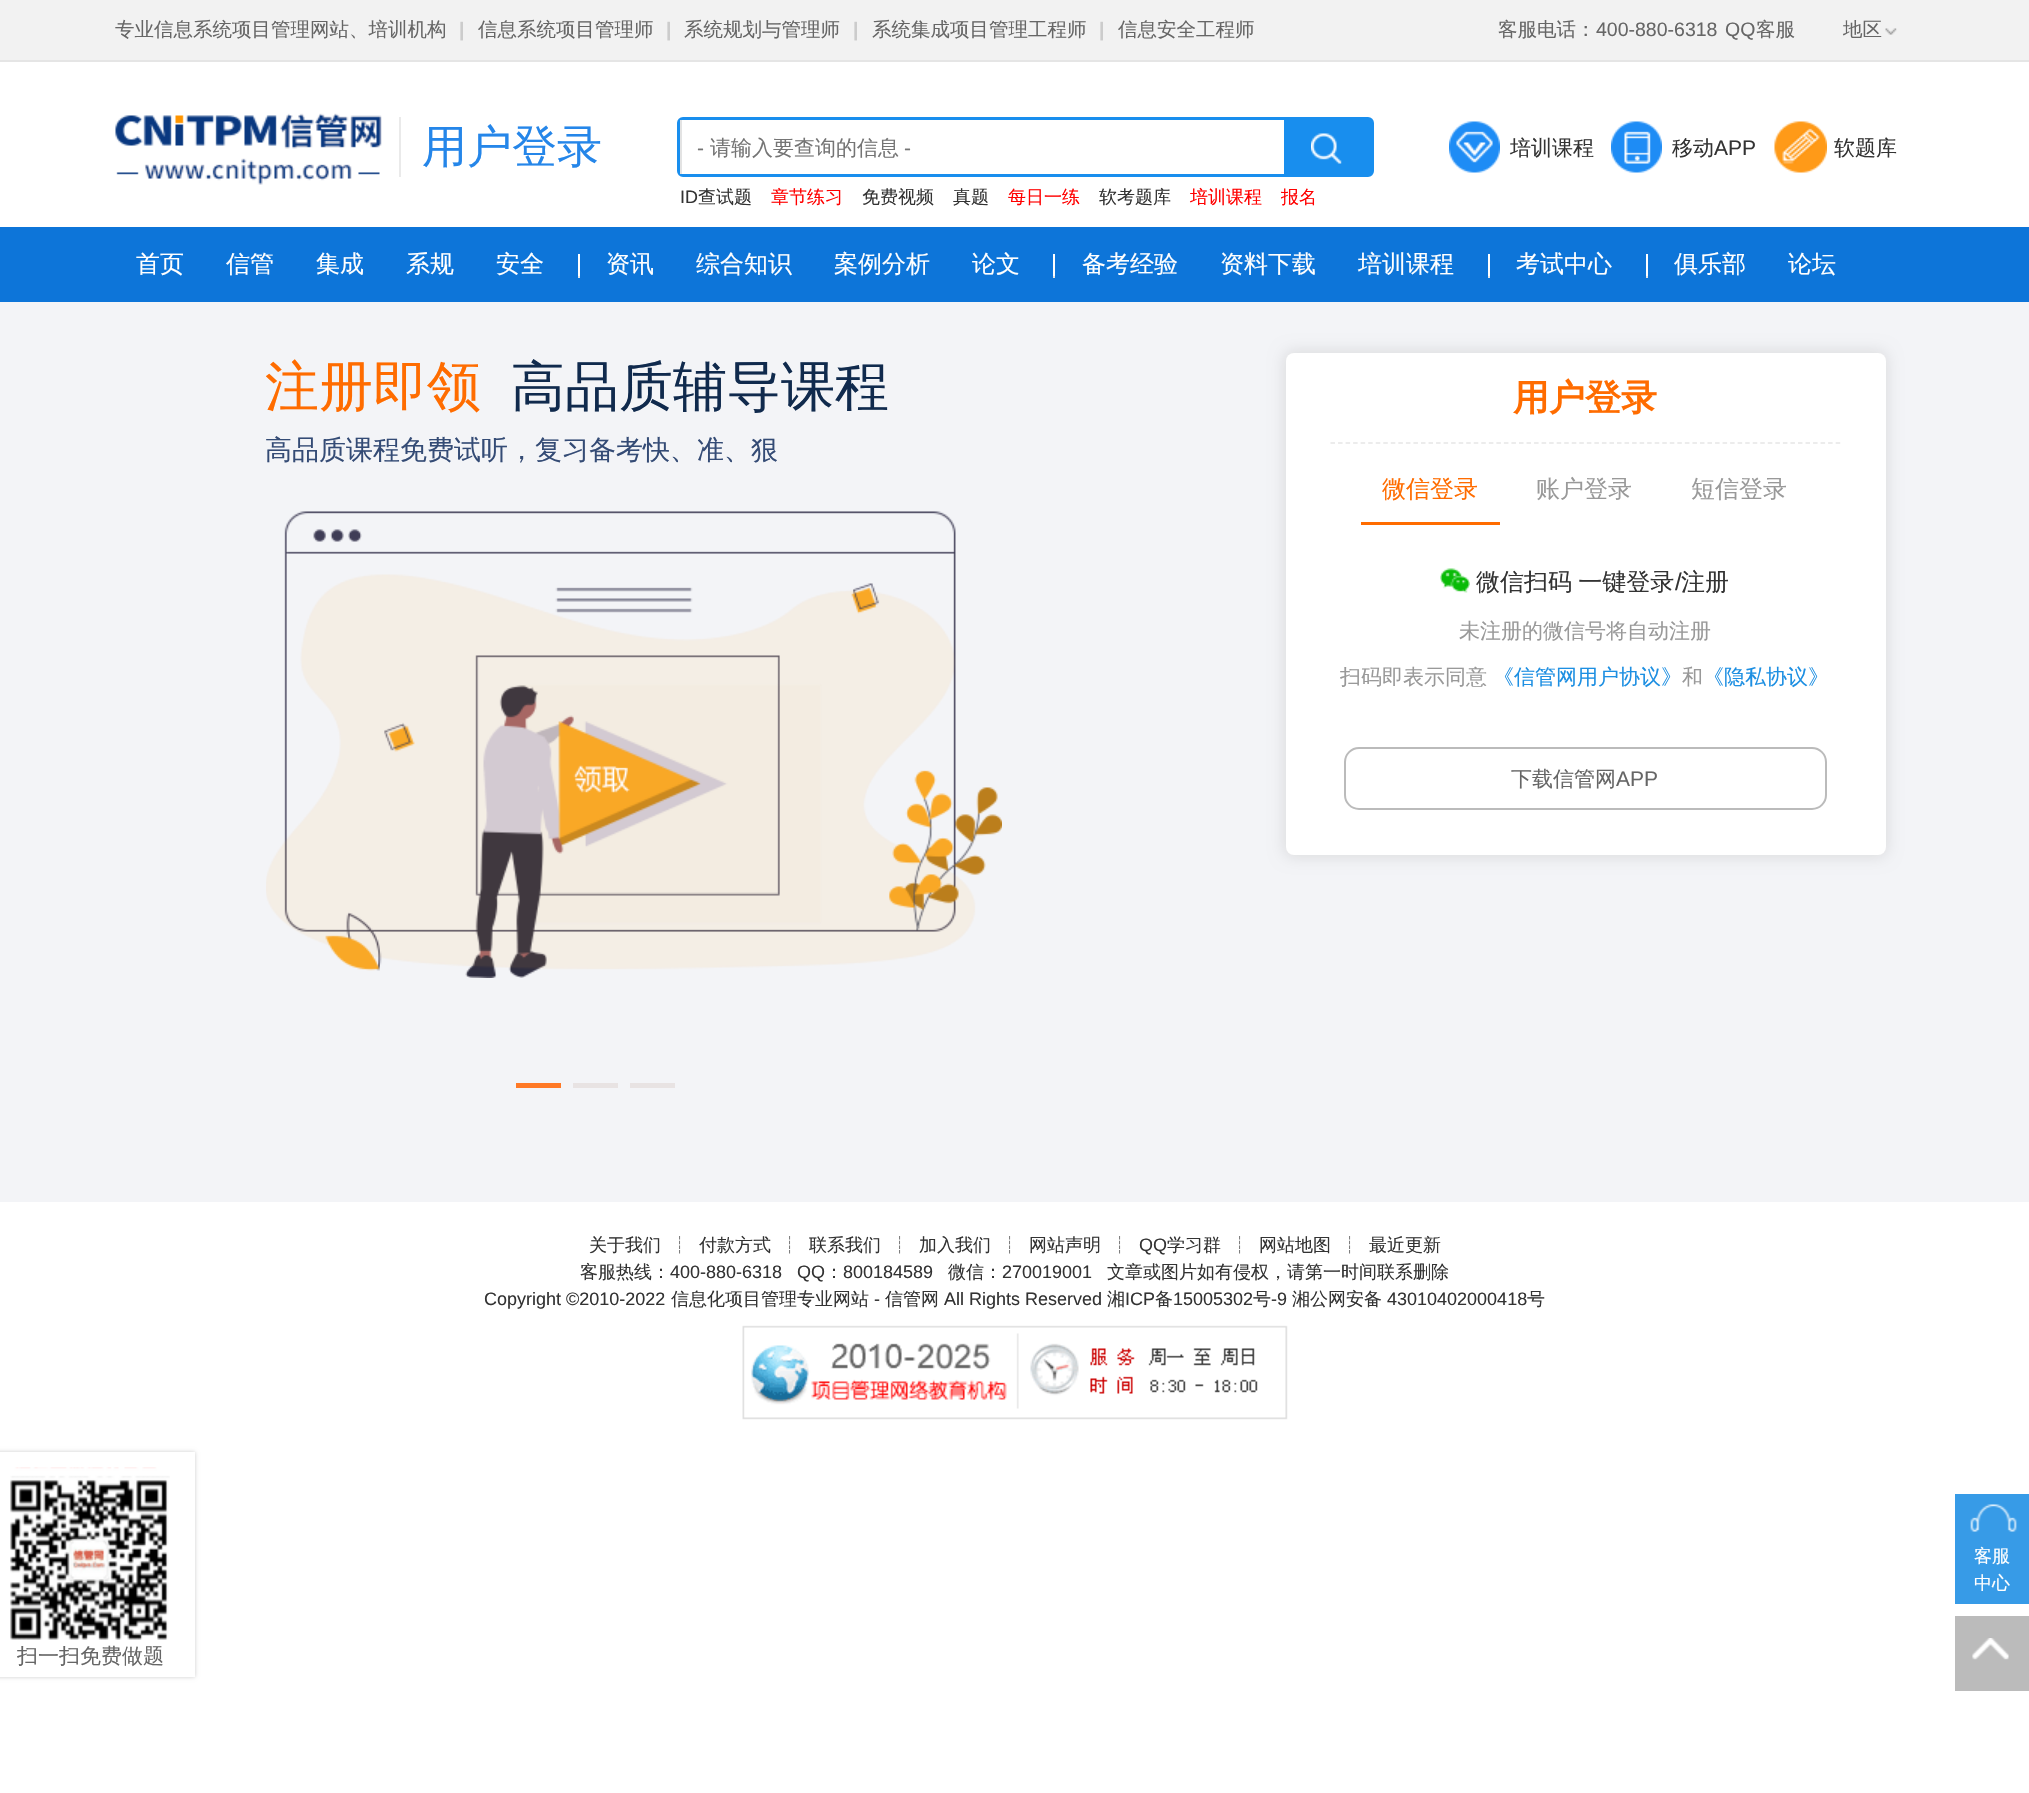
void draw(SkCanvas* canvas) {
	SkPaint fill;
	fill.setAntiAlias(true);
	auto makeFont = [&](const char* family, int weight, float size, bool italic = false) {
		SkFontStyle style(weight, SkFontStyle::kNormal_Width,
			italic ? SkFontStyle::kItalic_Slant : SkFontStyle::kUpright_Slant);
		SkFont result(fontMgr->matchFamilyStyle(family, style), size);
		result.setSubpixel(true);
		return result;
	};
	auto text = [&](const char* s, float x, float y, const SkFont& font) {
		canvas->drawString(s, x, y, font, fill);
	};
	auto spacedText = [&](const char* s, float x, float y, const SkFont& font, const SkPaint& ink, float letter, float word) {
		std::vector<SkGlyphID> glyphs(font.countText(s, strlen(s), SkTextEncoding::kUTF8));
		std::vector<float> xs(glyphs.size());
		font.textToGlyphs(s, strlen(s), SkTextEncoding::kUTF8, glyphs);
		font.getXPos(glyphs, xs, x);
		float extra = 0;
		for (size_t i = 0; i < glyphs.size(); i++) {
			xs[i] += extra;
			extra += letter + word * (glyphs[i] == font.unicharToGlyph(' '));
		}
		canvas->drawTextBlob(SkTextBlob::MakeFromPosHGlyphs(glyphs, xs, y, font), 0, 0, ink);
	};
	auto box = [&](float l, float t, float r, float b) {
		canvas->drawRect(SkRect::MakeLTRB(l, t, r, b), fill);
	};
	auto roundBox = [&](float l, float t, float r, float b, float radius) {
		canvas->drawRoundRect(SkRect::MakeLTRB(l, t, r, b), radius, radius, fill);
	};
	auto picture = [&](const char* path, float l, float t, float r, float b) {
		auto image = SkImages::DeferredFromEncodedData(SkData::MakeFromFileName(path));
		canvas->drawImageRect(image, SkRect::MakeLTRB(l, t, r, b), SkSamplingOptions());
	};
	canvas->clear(0xFFFFFFFF);
	fill.setColor(0xFFF2F2F2);
	box(0, 0, 2029, 60);
	fill.setColor(0xFFE5E5E5);
	box(0, 60, 2029, 62);
	picture("image0.png", 1885, 28, 1897, 35);
	picture("image1.png", 115, 113, 382, 185);
	fill.setColor(0xFFEAEAEA);
	box(399, 117, 401, 177);
	fill.setStyle(SkPaint::kStroke_Style);
	fill.setStrokeWidth(3);
	fill.setColor(0xFF188EEE);
	canvas->drawRoundRect(SkRect::MakeLTRB(678.5f, 118.5f, 1372.5f, 175.5f), 4.5f, 4.5f, fill);
	fill.setStyle(SkPaint::kFill_Style);
	fill.setColor(0xFFFFFFFF);
	box(682, 120, 683, 174);
	fill.setColor(0xFFE3E3E3);
	box(680, 120, 682, 174);
	fill.setColor(0xFF188EEE);
	box(1284, 120, 1371, 174);
	picture("image2.png", 1311, 133, 1342, 164);
	picture("image3.png", 1449, 121, 1500, 173);
	picture("image4.png", 1611, 121, 1662, 173);
	picture("image5.png", 1774, 121, 1827, 173);
	fill.setColor(0xFF0D75D9);
	box(0, 227, 2029, 302);
	fill.setColor(0xFFFFFFFF);
	box(578, 254, 580, 278);
	fill.setColor(0xFFE7E7E7);
	box(578, 276, 580, 278);
	fill.setColor(0xFFFFFFFF);
	box(1053, 254, 1055, 278);
	fill.setColor(0xFFE7E7E7);
	box(1053, 276, 1055, 278);
	fill.setColor(0xFFFFFFFF);
	box(1488, 254, 1490, 278);
	fill.setColor(0xFFE7E7E7);
	box(1488, 276, 1490, 278);
	fill.setColor(0xFFFFFFFF);
	box(1646, 254, 1648, 278);
	fill.setColor(0xFFE7E7E7);
	box(1646, 276, 1648, 278);
	fill.setColor(0xFFF3F4F7);
	box(0, 302, 2029, 1202);
	picture("image6.png", 266, 511, 1002, 978);
	fill.setColor(0xFFFF7926);
	box(516, 1083, 561, 1088);
	fill.setColor(0xFFE8E3E3);
	box(573, 1083, 618, 1088);
	box(630, 1083, 675, 1088);
	fill.setColor(0x1A000000);
	fill.setMaskFilter(SkMaskFilter::MakeBlur(kNormal_SkBlurStyle, 7.5f));
	canvas->drawRoundRect(SkRect::MakeLTRB(1284, 351, 1887, 857), 9, 9, fill);
	fill.setMaskFilter(nullptr);
	fill.setColor(0xFFFFFFFF);
	roundBox(1286, 353, 1886, 855, 8);
	fill.setStyle(SkPaint::kStroke_Style);
	fill.setStrokeWidth(1.5f);
	fill.setColor(0xFFE6E6E6);
	fill.setPathEffect(SkDashPathEffect::Make({{4.5f, 3.04f}}, 0));
	canvas->drawPath(SkPathBuilder().moveTo(1330.5f, 443).lineTo(1840.5f, 443).detach(), fill);
	fill.setPathEffect(nullptr);
	fill.setStyle(SkPaint::kFill_Style);
	fill.setColor(0xFFFF6C00);
	box(1361, 522, 1500, 525);
	picture("image7.png", 1440, 568, 1470, 593);
	fill.setStyle(SkPaint::kStroke_Style);
	fill.setStrokeWidth(2);
	fill.setColor(0xFFBBBBBB);
	canvas->drawRoundRect(SkRect::MakeLTRB(1345, 748, 1826, 809), 14, 14, fill);
	picture("image8.png", 742, 1325, 1288, 1420);
	fill.setStyle(SkPaint::kFill_Style);
	fill.setColor(0xFF379BE7);
	box(1955, 1494, 2029, 1604);
	picture("image9.png", 1970, 1504, 2017, 1532);
	fill.setColor(0xFFBBBBBB);
	box(1955, 1616, 2029, 1691);
	picture("image10.png", 1972, 1638, 2009, 1660);
	canvas->save();
	canvas->clipPath(SkPathBuilder(SkPathFillType::kEvenOdd).moveTo(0, 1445).lineTo(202, 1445).lineTo(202, 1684).lineTo(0, 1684).close().moveTo(-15, 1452).lineTo(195, 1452).lineTo(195, 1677).lineTo(-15, 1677).close().detach(), true);
	fill.setColor(0x33000000);
	fill.setMaskFilter(SkMaskFilter::MakeBlur(kNormal_SkBlurStyle, 2));
	canvas->drawRect(SkRect::MakeLTRB(-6, 1452, 195, 1677), fill);
	fill.setMaskFilter(nullptr);
	canvas->restore();
	picture("image11.png", 10, 1467, 170, 1640);
	auto font1 = makeFont("WenQuanYi Zen Hei", 500, 19.5f);
	fill.setColor(0xFF666666);
	text("专业信息系统项目管理网站、培训机构", 115, 36, font1);
	auto font2 = makeFont("Liberation Sans", 700, 19.5f);
	fill.setColor(0xFFCCCCCC);
	text("|", 459, 36, font2);
	fill.setColor(0xFF666666);
	text("信息系统项目管理师", 478, 36, font1);
	fill.setColor(0xFFCCCCCC);
	text("|", 666, 36, font2);
	fill.setColor(0xFF666666);
	text("系统规划与管理师", 684, 36, font1);
	fill.setColor(0xFFCCCCCC);
	text("|", 853, 36, font2);
	fill.setColor(0xFF666666);
	text("系统集成项目管理工程师", 872, 36, font1);
	fill.setColor(0xFFCCCCCC);
	text("|", 1099, 36, font2);
	fill.setColor(0xFF666666);
	text("信息安全工程师", 1118, 36, font1);
	text("客服电话：", 1498, 36, font1);
	auto font3 = makeFont("Liberation Sans", 400, 19.5f);
	text("400-880-6318", 1596, 36, font3);
	text("QQ", 1725, 36, font3);
	text("客服", 1756, 36, font1);
	text("地区", 1843, 36, font1);
	auto font4 = makeFont("WenQuanYi Zen Hei", 500, 45);
	fill.setColor(0xFF2586E9);
	text("用户登录", 422, 162, font4);
	auto font5 = makeFont("Liberation Sans", 400, 21);
	fill.setColor(0xFF757575);
	text("-", 697, 155, font5);
	auto font6 = makeFont("WenQuanYi Zen Hei", 500, 21);
	text("请输入要查询的信息", 710, 155, font6);
	text("-", 904, 155, font5);
	auto font7 = makeFont("Liberation Sans", 400, 18);
	fill.setColor(0xFF333333);
	text("ID", 680, 203, font7);
	auto font8 = makeFont("WenQuanYi Zen Hei", 500, 18);
	text("查试题", 698, 203, font8);
	fill.setColor(0xFFFF0000);
	text("章节练习", 771, 203, font8);
	fill.setColor(0xFF333333);
	text("免费视频", 862, 203, font8);
	text("真题", 953, 203, font8);
	fill.setColor(0xFFFF0000);
	text("每日一练", 1008, 203, font8);
	fill.setColor(0xFF333333);
	text("软考题库", 1099, 203, font8);
	fill.setColor(0xFFFF0000);
	text("培训课程", 1190, 203, font8);
	text("报名", 1281, 203, font8);
	fill.setColor(0xFF333333);
	text("培训课程", 1510, 155, font6);
	text("移动", 1672, 155, font6);
	text("APP", 1714, 155, font5);
	text("软题库", 1834, 155, font6);
	auto font9 = makeFont("WenQuanYi Zen Hei", 500, 24);
	fill.setColor(0xFFFFFFFF);
	text("首页", 136, 272, font9);
	text("信管", 226, 272, font9);
	text("集成", 316, 272, font9);
	text("系规", 406, 272, font9);
	text("安全", 496, 272, font9);
	text("资讯", 606, 272, font9);
	text("综合知识", 696, 272, font9);
	text("案例分析", 834, 272, font9);
	text("论文", 972, 272, font9);
	text("备考经验", 1082, 272, font9);
	text("资料下载", 1220, 272, font9);
	text("培训课程", 1358, 272, font9);
	text("考试中心", 1516, 272, font9);
	text("俱乐部", 1674, 272, font9);
	text("论坛", 1788, 272, font9);
	auto font10 = makeFont("WenQuanYi Zen Hei", 500, 54);
	fill.setColor(0xFFFF6C00);
	text("注册即领", 265, 405, font10);
	fill.setColor(0xFF102A4D);
	text("高品质辅导课程", 511, 405, font10);
	auto font11 = makeFont("WenQuanYi Zen Hei", 500, 27);
	fill.setColor(0xFF344B75);
	text("高品质课程免费试听，复习备考快、准、狠", 265, 459, font11);
	auto font12 = makeFont("WenQuanYi Zen Hei", 700, 36);
	fill.setColor(0xFFFF6C00);
	text("用户登录", 1513, 410, font12);
	text("微信登录", 1382, 497, font9);
	fill.setColor(0xFF999999);
	text("账户登录", 1536, 497, font9);
	text("短信登录", 1691, 497, font9);
	fill.setColor(0xFF333333);
	spacedText("微信扫码 一键登录", 1476, 590, font9, fill, 0, -1);
	auto font13 = makeFont("Liberation Sans", 400, 24);
	text("/", 1675, 590, font13);
	text("注册", 1681, 590, font9);
	fill.setColor(0xFF999999);
	text("未注册的微信号将自动注册", 1459, 638, font6);
	text("扫码即表示同意", 1340, 684, font6);
	fill.setColor(0xFF1D8FE2);
	text("《信管网用户协议》", 1493, 684, font6);
	fill.setColor(0xFF999999);
	text("和", 1682, 684, font6);
	fill.setColor(0xFF1D8FE2);
	text("《隐私协议》", 1703, 684, font6);
	fill.setColor(0xFF666666);
	text("下载信管网", 1511, 786, font6);
	text("APP", 1616, 786, font5);
	fill.setColor(0xFF333333);
	text("关于我们", 589, 1251, font8);
	text("┊", 671, 1251, font8);
	text("付款方式", 699, 1251, font8);
	text("┊", 781, 1251, font8);
	text("联系我们", 809, 1251, font8);
	text("┊", 891, 1251, font8);
	text("加入我们", 919, 1251, font8);
	text("┊", 1001, 1251, font8);
	text("网站声明", 1029, 1251, font8);
	text("┊", 1111, 1251, font8);
	text("QQ", 1139, 1251, font7);
	text("学习群", 1167, 1251, font8);
	text("┊", 1231, 1251, font8);
	text("网站地图", 1259, 1251, font8);
	text("┊", 1341, 1251, font8);
	text("最近更新", 1369, 1251, font8);
	text("客服热线：", 580, 1278, font8);
	text("400-880-6318", 670, 1278, font7);
	text("QQ", 797, 1278, font7);
	text("：", 825, 1278, font8);
	text("800184589", 843, 1278, font7);
	text("微信：", 948, 1278, font8);
	text("270019001", 1002, 1278, font7);
	text("文章或图片如有侵权，请第一时间联系删除", 1107, 1278, font8);
	text("Copyright ©2010-2022", 484, 1305, font7);
	text("信息化项目管理专业网站", 671, 1305, font8);
	text("-", 874, 1305, font7);
	text("信管网", 885, 1305, font8);
	text("All Rights Reserved", 944, 1305, font7);
	text("湘", 1107, 1305, font8);
	text("ICP", 1125, 1305, font7);
	text("备", 1155, 1305, font8);
	text("15005302", 1173, 1305, font7);
	text("号", 1253, 1305, font8);
	text("-9", 1271, 1305, font7);
	text("湘公网安备", 1292, 1305, font8);
	text("43010402000418", 1387, 1305, font7);
	text("号", 1527, 1305, font8);
	fill.setColor(0xFFFFFFFF);
	text("客服", 1974, 1562, font8);
	text("中心", 1974, 1589, font8);
	fill.setColor(0xFF666666);
	text("扫一扫免费做题", 17, 1663, font6);
}
